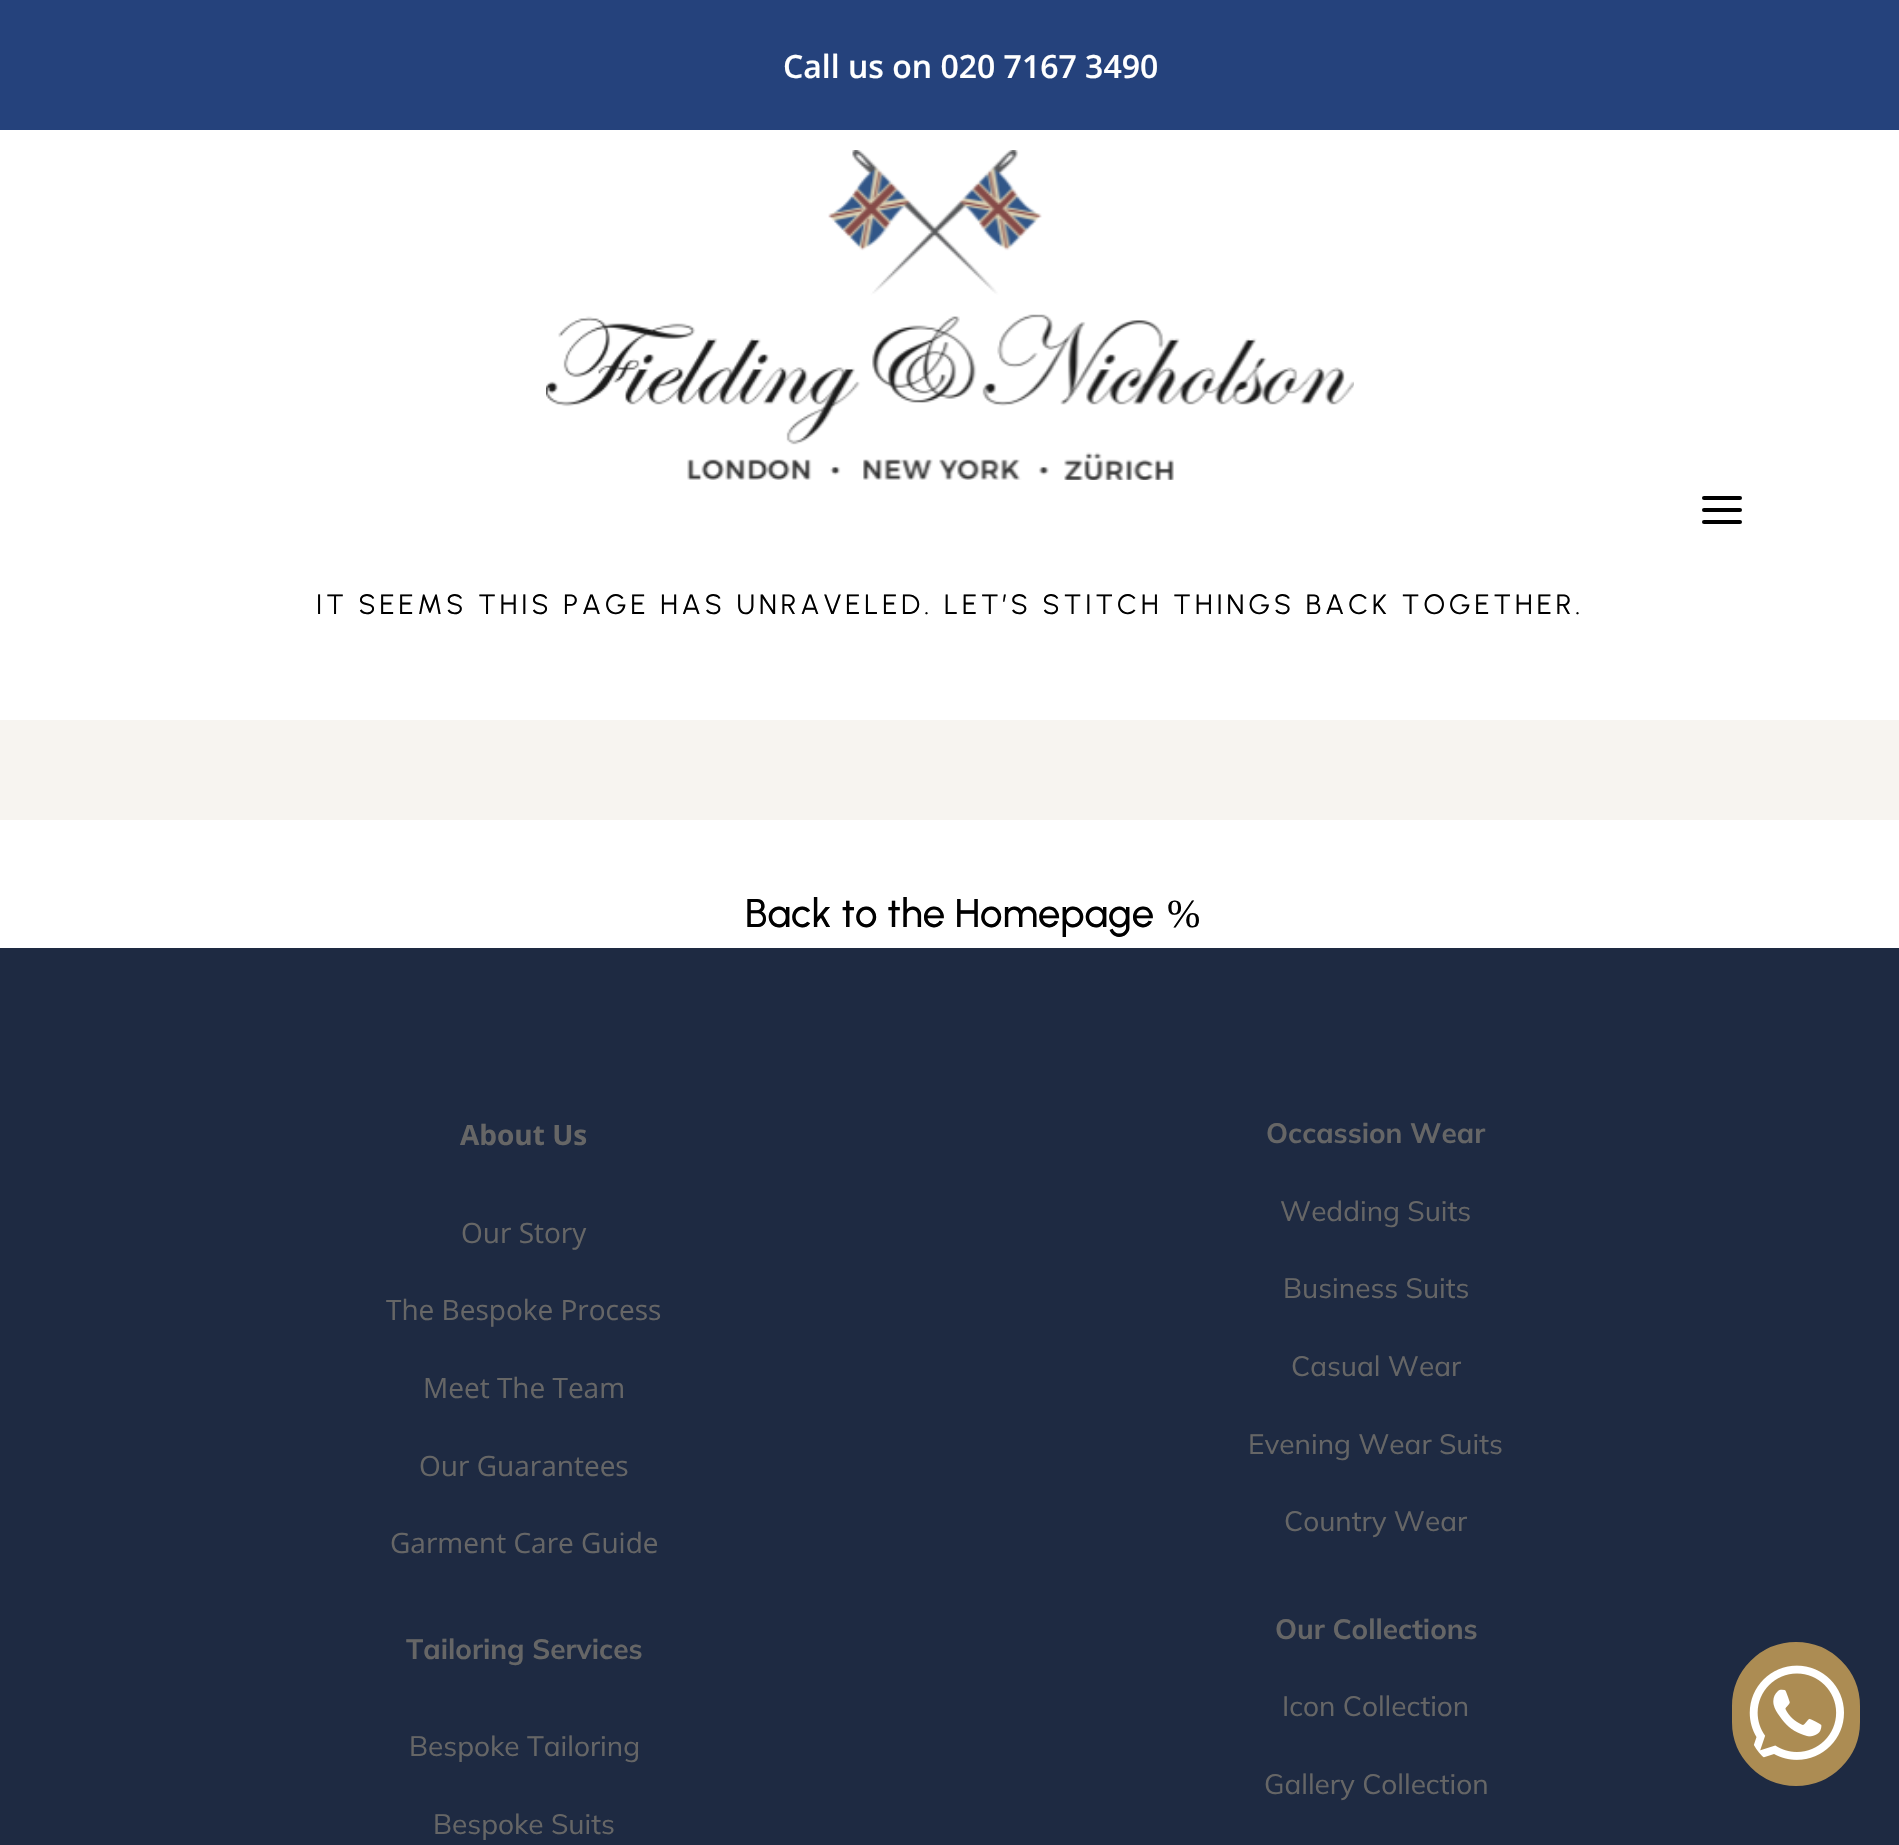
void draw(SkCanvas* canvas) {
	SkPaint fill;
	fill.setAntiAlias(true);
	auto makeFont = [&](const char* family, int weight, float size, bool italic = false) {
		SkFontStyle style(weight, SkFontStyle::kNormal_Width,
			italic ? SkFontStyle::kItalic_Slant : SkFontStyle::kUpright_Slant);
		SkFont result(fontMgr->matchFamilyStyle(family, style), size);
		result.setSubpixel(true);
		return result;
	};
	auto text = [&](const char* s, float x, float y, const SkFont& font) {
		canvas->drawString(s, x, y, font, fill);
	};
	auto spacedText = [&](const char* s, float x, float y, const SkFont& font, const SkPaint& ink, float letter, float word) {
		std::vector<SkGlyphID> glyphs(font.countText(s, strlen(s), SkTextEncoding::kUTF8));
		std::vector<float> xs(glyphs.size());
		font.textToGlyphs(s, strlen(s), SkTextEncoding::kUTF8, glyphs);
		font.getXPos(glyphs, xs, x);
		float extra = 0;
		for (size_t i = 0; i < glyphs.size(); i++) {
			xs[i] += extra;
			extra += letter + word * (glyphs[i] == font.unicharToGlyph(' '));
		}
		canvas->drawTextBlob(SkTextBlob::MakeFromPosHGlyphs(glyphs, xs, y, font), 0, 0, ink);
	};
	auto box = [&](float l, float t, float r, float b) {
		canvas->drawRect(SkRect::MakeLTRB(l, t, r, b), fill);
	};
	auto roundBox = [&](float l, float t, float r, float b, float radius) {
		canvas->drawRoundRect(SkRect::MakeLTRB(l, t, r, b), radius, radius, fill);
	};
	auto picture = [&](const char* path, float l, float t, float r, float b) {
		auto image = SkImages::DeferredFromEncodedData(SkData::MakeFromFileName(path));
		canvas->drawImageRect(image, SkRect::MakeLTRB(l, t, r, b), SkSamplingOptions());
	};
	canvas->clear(0xFFFFFFFF);
	fill.setColor(0xFF25427C);
	box(0, 0, 1899, 130);
	picture("image0.png", 546, 150, 1354, 480);
	fill.setColor(0xFF000000);
	roundBox(1702, 496, 1742, 500, 2);
	roundBox(1702, 508, 1742, 512, 2);
	roundBox(1702, 520, 1742, 524, 2);
	fill.setColor(0xFFF7F4F0);
	box(0, 720, 1899, 820);
	fill.setColor(0xFF1E2A42);
	box(0, 948, 1899, 1845);
	fill.setColor(0xFFAC8C53);
	canvas->drawRoundRect(SkRect::MakeLTRB(1740, 1650, 1852, 1778), 56, 56, fill);
	fill.setStyle(SkPaint::kStroke_Style);
	fill.setStrokeWidth(16);
	canvas->drawRoundRect(SkRect::MakeLTRB(1740, 1650, 1852, 1778), 56, 56, fill);
	picture("image1.png", 1749, 1665, 1844, 1760);
	auto font1 = makeFont("Open Sans", 600, 32);
	fill.setStyle(SkPaint::kFill_Style);
	fill.setColor(0xFFFFFFFF);
	text("Call us on 020 7167 3490", 783, 78, font1);
	auto font2 = makeFont("Urbanist", 400, 28);
	fill.setColor(0xFF000000);
	spacedText("IT SEEMS THIS PAGE HAS UNRAVELED. LET’S STITCH THINGS BACK TOGETHER.", 316, 614, font2, fill, 4, 0);
	auto font3 = makeFont("Urbanist", 500, 40);
	text("Back to the Homepage", 745, 927, font3);
	auto font4 = makeFont("Liberation Serif", 400, 40);
	text("%", 1167, 927, font4);
	auto font5 = makeFont("Open Sans", 700, 28);
	fill.setColor(0xFF666666);
	text("About Us", 460, 1145, font5);
	auto font6 = makeFont("Open Sans", 400, 28);
	text("Our Story", 461, 1243, font6);
	text("The Bespoke Process", 386, 1320, font6);
	text("Meet The Team", 423, 1398, font6);
	text("Our Guarantees", 419, 1476, font6);
	text("Garment Care Guide", 390, 1553, font6);
	auto font7 = makeFont("Mulish", 700, 28);
	text("Tailoring Services", 406, 1659, font7);
	auto font8 = makeFont("Mulish", 400, 28);
	text("Bespoke Tailoring", 409, 1756, font8);
	text("Bespoke Suits", 433, 1834, font8);
	text("Occassion Wear", 1266, 1143, font7);
	text("Wedding Suits", 1280, 1221, font8);
	text("Business Suits", 1283, 1298, font8);
	text("Casual Wear", 1291, 1376, font8);
	text("Evening Wear Suits", 1248, 1454, font8);
	text("Country Wear", 1284, 1531, font8);
	text("Our Collections", 1275, 1639, font7);
	text("Icon Collection", 1282, 1716, font8);
	text("Gallery Collection", 1264, 1794, font8);
}
